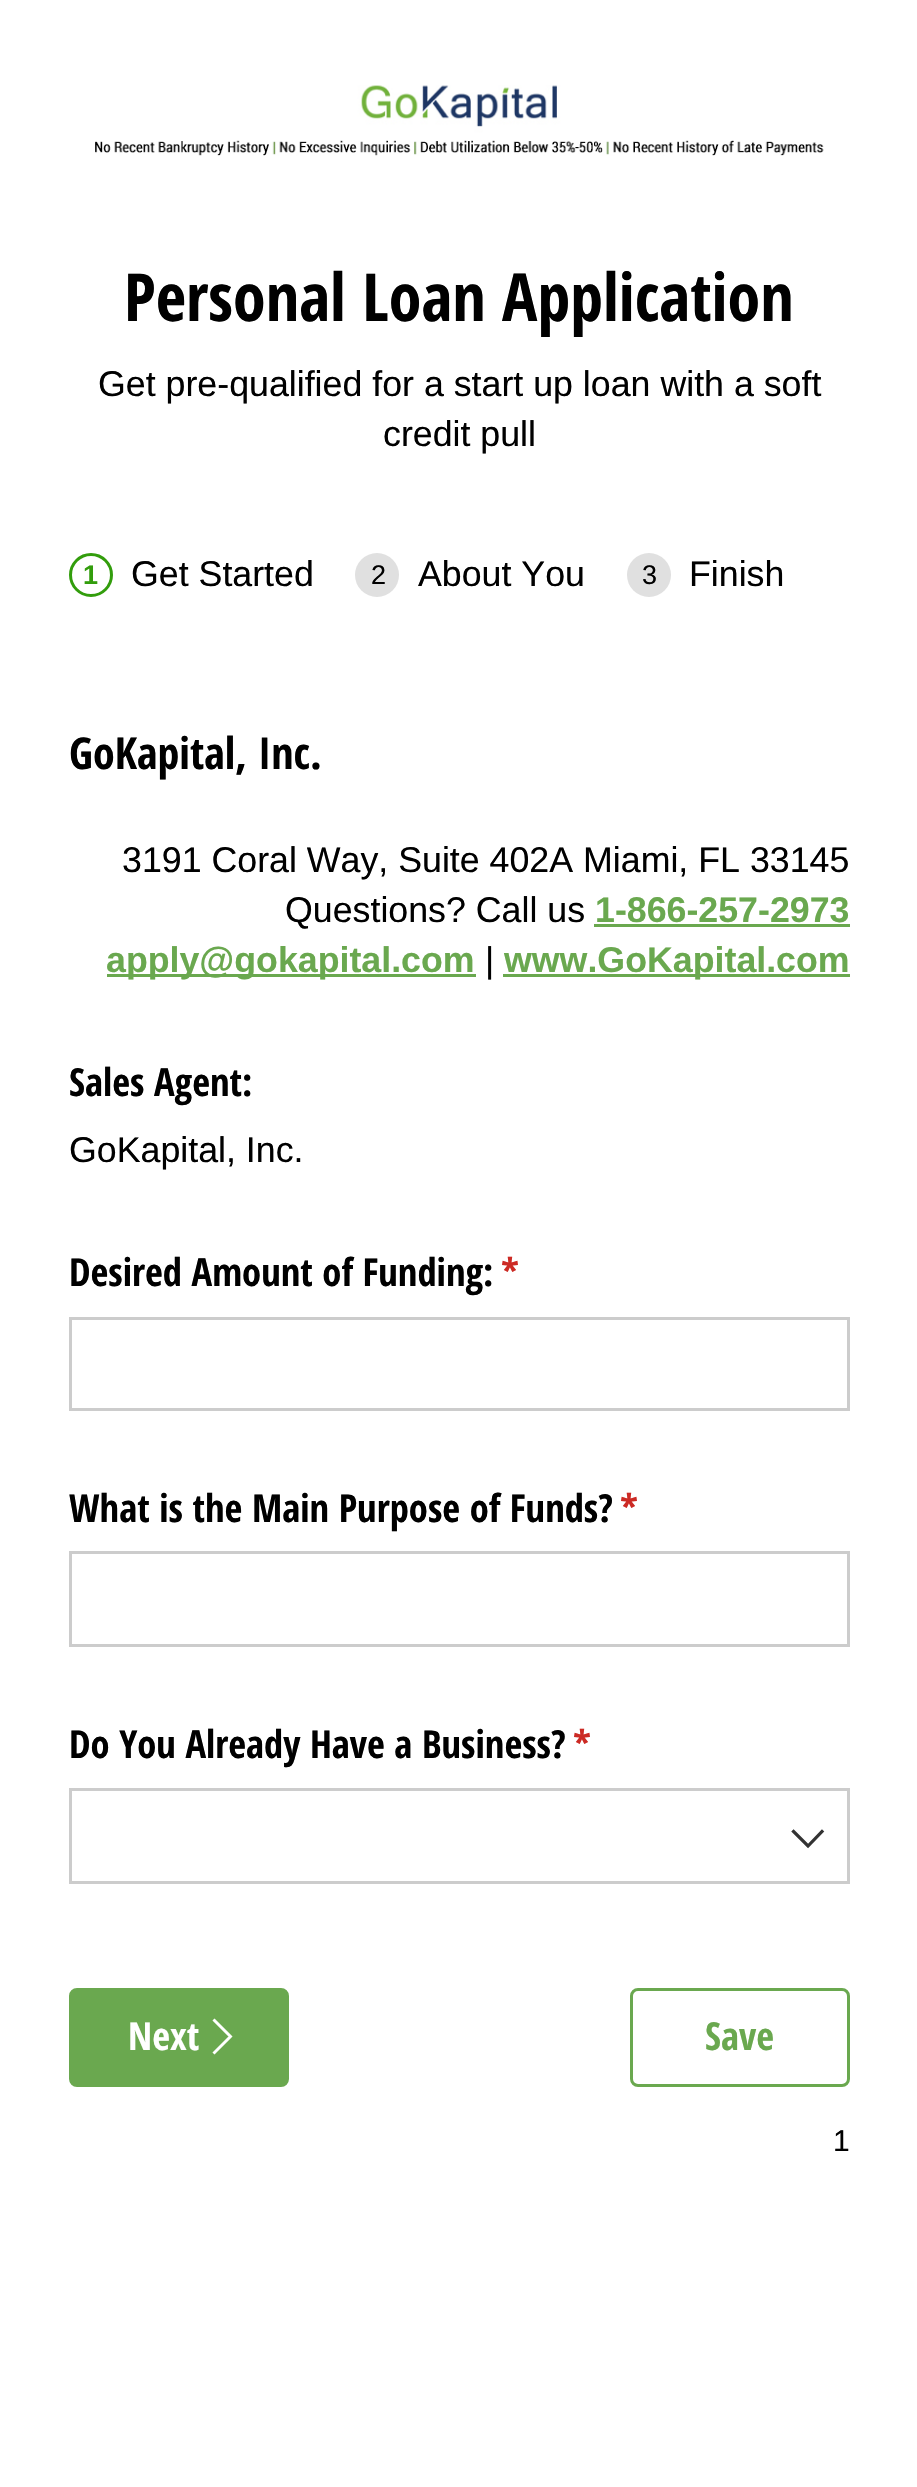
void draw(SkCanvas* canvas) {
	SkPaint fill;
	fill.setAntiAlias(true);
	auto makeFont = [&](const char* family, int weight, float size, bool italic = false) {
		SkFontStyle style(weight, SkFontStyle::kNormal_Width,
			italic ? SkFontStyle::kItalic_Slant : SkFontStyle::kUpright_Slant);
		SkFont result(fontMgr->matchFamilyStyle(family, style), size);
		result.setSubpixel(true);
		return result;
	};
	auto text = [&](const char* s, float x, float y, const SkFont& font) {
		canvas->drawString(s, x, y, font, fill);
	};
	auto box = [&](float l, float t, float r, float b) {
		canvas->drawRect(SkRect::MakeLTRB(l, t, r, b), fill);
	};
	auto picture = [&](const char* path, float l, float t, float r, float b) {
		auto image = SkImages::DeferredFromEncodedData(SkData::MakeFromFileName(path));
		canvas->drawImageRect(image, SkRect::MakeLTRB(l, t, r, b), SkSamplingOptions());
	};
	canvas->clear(0xFFFFFFFF);
	picture("image0.png", 95, 85, 824, 156);
	fill.setStyle(SkPaint::kStroke_Style);
	fill.setStrokeWidth(3);
	fill.setColor(0xFF329D0C);
	canvas->drawCircle(91, 575, 20.5f, fill);
	fill.setStyle(SkPaint::kFill_Style);
	fill.setColor(0xFFE0E0E0);
	canvas->drawCircle(377, 575, 22, fill);
	canvas->drawCircle(649, 575, 22, fill);
	fill.setColor(0xFF6AA84F);
	box(594, 924, 850, 927);
	box(107, 974, 476, 977);
	box(503, 974, 850, 977);
	fill.setStyle(SkPaint::kStroke_Style);
	fill.setColor(0xFFCCCCCC);
	canvas->drawRect(SkRect::MakeLTRB(70.5f, 1318.5f, 848.5f, 1409.5f), fill);
	canvas->drawRect(SkRect::MakeLTRB(70.5f, 1552.5f, 848.5f, 1645.5f), fill);
	canvas->drawRect(SkRect::MakeLTRB(70.5f, 1789.5f, 848.5f, 1882.5f), fill);
	fill.setStrokeWidth(3.2f);
	fill.setStrokeCap(SkPaint::kSquare_Cap);
	fill.setColor(0xFF333333);
	canvas->drawPath(SkPathBuilder().moveTo(793.5f, 1831.5f).lineTo(808, 1846).lineTo(822, 1831.5f).detach(), fill);
	fill.setStyle(SkPaint::kFill_Style);
	fill.setColor(0xFF6AA84F);
	canvas->drawRoundRect(SkRect::MakeLTRB(70.5f, 1989.5f, 287.5f, 2085.5f), 6.5f, 6.5f, fill);
	fill.setStyle(SkPaint::kStroke_Style);
	fill.setStrokeWidth(3);
	fill.setStrokeCap(SkPaint::kButt_Cap);
	canvas->drawRoundRect(SkRect::MakeLTRB(70.5f, 1989.5f, 287.5f, 2085.5f), 6.5f, 6.5f, fill);
	fill.setStrokeWidth(2.9f);
	fill.setStrokeCap(SkPaint::kSquare_Cap);
	fill.setColor(0xFFFFFFFF);
	canvas->drawPath(SkPathBuilder().moveTo(214.5f, 2052.5f).lineTo(230.5f, 2036.5f).lineTo(214.5f, 2020.5f).detach(), fill);
	fill.setStrokeWidth(3);
	fill.setStrokeCap(SkPaint::kButt_Cap);
	fill.setColor(0xFF6AA84F);
	canvas->drawRoundRect(SkRect::MakeLTRB(631.5f, 1989.5f, 848.5f, 2085.5f), 6.5f, 6.5f, fill);
	auto font1 = makeFont("Open Sans Condensed", 700, 66.1f);
	fill.setStyle(SkPaint::kFill_Style);
	fill.setColor(0xFF000000);
	text("Personal Loan Application", 124, 321, font1);
	auto font2 = makeFont("Liberation Sans", 400, 35.75f);
	text("Get pre-qualified for a start up loan with a soft", 98, 396, font2);
	text("credit pull", 383, 446, font2);
	auto font3 = makeFont("Liberation Sans", 700, 27);
	fill.setColor(0xFF329D0C);
	text("1", 83, 584, font3);
	fill.setColor(0xFF000000);
	text("Get Started", 131, 586, font2);
	auto font4 = makeFont("Liberation Sans", 400, 27);
	text("2", 371, 584, font4);
	text("About You", 418, 586, font2);
	text("3", 642, 584, font4);
	text("Finish", 689, 586, font2);
	auto font5 = makeFont("Open Sans Condensed", 700, 44);
	text("GoKapital, Inc.", 69, 769, font5);
	text("3191 Coral Way, Suite 402A Miami, FL 33145", 122, 872, font2);
	text("Questions? Call us", 285, 922, font2);
	auto font6 = makeFont("Liberation Sans", 700, 35.75f);
	fill.setColor(0xFF6AA84F);
	text("1-866-257-2973", 595, 922, font6);
	text("apply@gokapital.com", 106, 972, font6);
	fill.setColor(0xFF000000);
	text("|", 485, 972, font2);
	fill.setColor(0xFF6AA84F);
	text("www.GoKapital.com", 504, 972, font6);
	auto font7 = makeFont("Open Sans Condensed", 700, 38.6f);
	fill.setColor(0xFF000000);
	text("Sales Agent:", 69, 1096, font7);
	text("GoKapital, Inc.", 69, 1162, font2);
	text("Desired Amount of Funding:", 69, 1286, font7);
	fill.setColor(0xFFCC2A24);
	text("*", 501, 1286, font7);
	fill.setColor(0xFF000000);
	text("What is the Main Purpose of Funds?", 69, 1522, font7);
	fill.setColor(0xFFCC2A24);
	text("*", 620, 1522, font7);
	fill.setColor(0xFF000000);
	text("Do You Already Have a Business?", 69, 1758, font7);
	fill.setColor(0xFFCC2A24);
	text("*", 573, 1758, font7);
	fill.setColor(0xFFFFFFFF);
	text("Next", 128, 2050, font7);
	fill.setColor(0xFF6AA84F);
	text("Save", 705, 2050, font7);
	auto font8 = makeFont("Liberation Sans", 400, 30);
	fill.setColor(0xFF000000);
	text("1", 833, 2151, font8);
}
